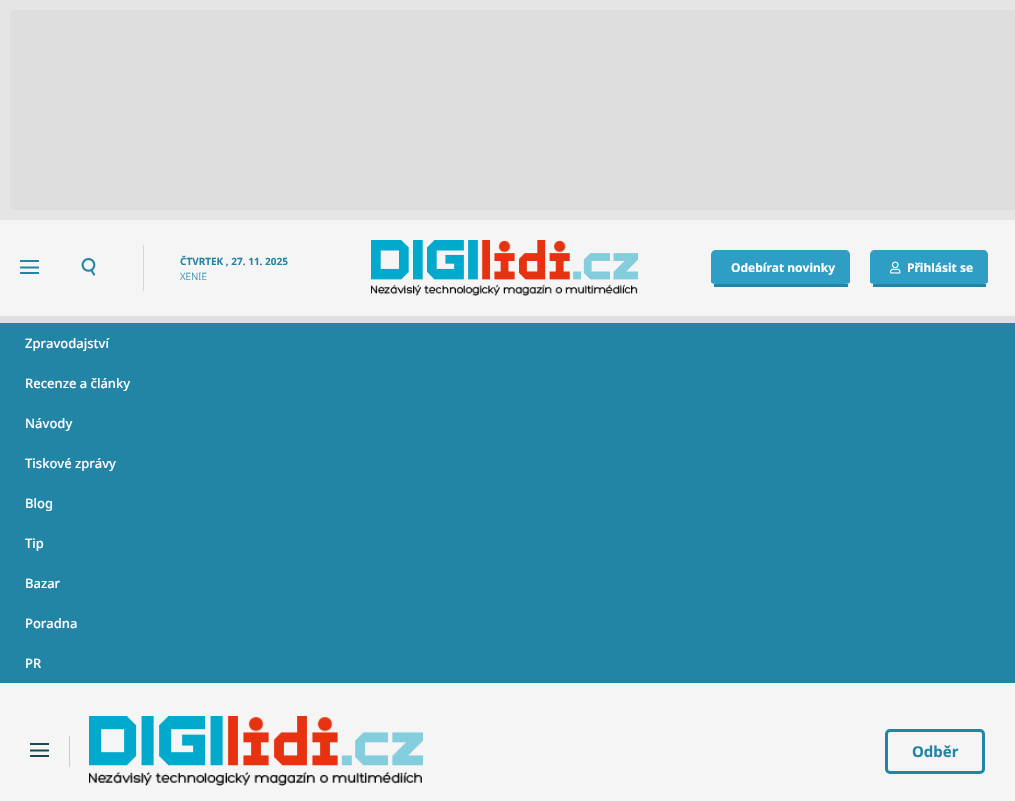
void draw(SkCanvas* canvas) {
	SkPaint fill;
	fill.setAntiAlias(true);
	auto makeFont = [&](const char* family, int weight, float size, bool italic = false) {
		SkFontStyle style(weight, SkFontStyle::kNormal_Width,
			italic ? SkFontStyle::kItalic_Slant : SkFontStyle::kUpright_Slant);
		SkFont result(fontMgr->matchFamilyStyle(family, style), size);
		result.setSubpixel(true);
		return result;
	};
	auto text = [&](const char* s, float x, float y, const SkFont& font) {
		canvas->drawString(s, x, y, font, fill);
	};
	auto box = [&](float l, float t, float r, float b) {
		canvas->drawRect(SkRect::MakeLTRB(l, t, r, b), fill);
	};
	auto roundBox = [&](float l, float t, float r, float b, float radius) {
		canvas->drawRoundRect(SkRect::MakeLTRB(l, t, r, b), radius, radius, fill);
	};
	auto picture = [&](const char* path, float l, float t, float r, float b) {
		auto image = SkImages::DeferredFromEncodedData(SkData::MakeFromFileName(path));
		canvas->drawImageRect(image, SkRect::MakeLTRB(l, t, r, b), SkSamplingOptions());
	};
	canvas->clear(0xFFE5E5E5);
	fill.setColor(0xFFDEDEDE);
	roundBox(10, 10, 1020, 210, 5);
	fill.setColor(0xFFF5F5F5);
	box(0, 220, 1015, 316);
	fill.setColor(0xFF2385A6);
	box(20, 260, 39, 262);
	fill.setStyle(SkPaint::kStroke_Style);
	fill.setStrokeWidth(2);
	canvas->drawPath(SkPathBuilder().moveTo(20, 267.5f).lineTo(39, 267.5f).detach(), fill);
	fill.setStyle(SkPaint::kFill_Style);
	box(20, 272, 39, 274);
	picture("image0.png", 81, 258, 96, 276);
	fill.setColor(0xFFD7D4D4);
	box(143, 245, 144, 291);
	picture("image1.png", 371, 240, 638, 296);
	fill.setColor(0xFF2E9EC4);
	canvas->drawPath(SkPathBuilder().moveTo(716, 250).lineTo(845, 250).cubicTo(848, 250, 850, 252, 850, 255).lineTo(850, 282).cubicTo(850, 283, 848, 284, 845, 284).lineTo(716, 284).cubicTo(713, 284, 711, 283, 711, 282).lineTo(711, 255).cubicTo(711, 252, 713, 250, 716, 250).close().detach(), fill);
	fill.setColor(0xFF2385A6);
	box(714, 284, 848, 287);
	fill.setColor(0xFF2E9EC4);
	canvas->drawPath(SkPathBuilder().moveTo(875, 250).lineTo(983, 250).cubicTo(986, 250, 988, 252, 988, 255).lineTo(988, 282).cubicTo(988, 283, 986, 284, 983, 284).lineTo(875, 284).cubicTo(872, 284, 870, 283, 870, 282).lineTo(870, 255).cubicTo(870, 252, 872, 250, 875, 250).close().detach(), fill);
	fill.setColor(0xFF2385A6);
	box(873, 284, 986, 287);
	picture("image2.png", 890, 261, 901, 274);
	fill.setColor(0xFFE0E0E0);
	box(0, 316, 1015, 323);
	fill.setColor(0xFF2385A6);
	box(0, 323, 1015, 683);
	fill.setColor(0xFFF5F5F5);
	box(0, 683, 1015, 801);
	fill.setColor(0xFFCECCCC);
	box(69, 736, 70, 767);
	fill.setColor(0xFF1E464E);
	box(30, 743, 49, 745);
	fill.setStyle(SkPaint::kStroke_Style);
	canvas->drawPath(SkPathBuilder().moveTo(30, 750.5f).lineTo(49, 750.5f).detach(), fill);
	fill.setStyle(SkPaint::kFill_Style);
	box(30, 755, 49, 757);
	picture("image3.png", 89, 716, 423, 786);
	fill.setStyle(SkPaint::kStroke_Style);
	fill.setStrokeWidth(3);
	fill.setColor(0xFF2385A6);
	canvas->drawRoundRect(SkRect::MakeLTRB(886.5f, 730.5f, 983.5f, 772.5f), 3.5f, 3.5f, fill);
	auto font1 = makeFont("Noto Sans", 700, 10);
	fill.setStyle(SkPaint::kFill_Style);
	text("ČTVRTEK , 27. 11. 2025", 180, 265, font1);
	auto font2 = makeFont("Noto Sans", 300, 10);
	text("XENIE", 180, 280, font2);
	auto font3 = makeFont("Noto Sans", 700, 12);
	fill.setColor(0xFFFFFFFF);
	text("Odebírat novinky", 731, 272, font3);
	text("Přihlásit se", 907, 272, font3);
	auto font4 = makeFont("Noto Sans", 500, 13);
	text("Zpravodajství", 25, 348, font4);
	text("Recenze a články", 25, 388, font4);
	text("Návody", 25, 428, font4);
	text("Tiskové zprávy", 25, 468, font4);
	text("Blog", 25, 508, font4);
	text("Tip", 25, 548, font4);
	text("Bazar", 25, 588, font4);
	text("Poradna", 25, 628, font4);
	text("PR", 25, 668, font4);
	auto font5 = makeFont("Noto Sans", 700, 15);
	fill.setColor(0xFF2385A6);
	text("Odběr", 912, 757, font5);
}
